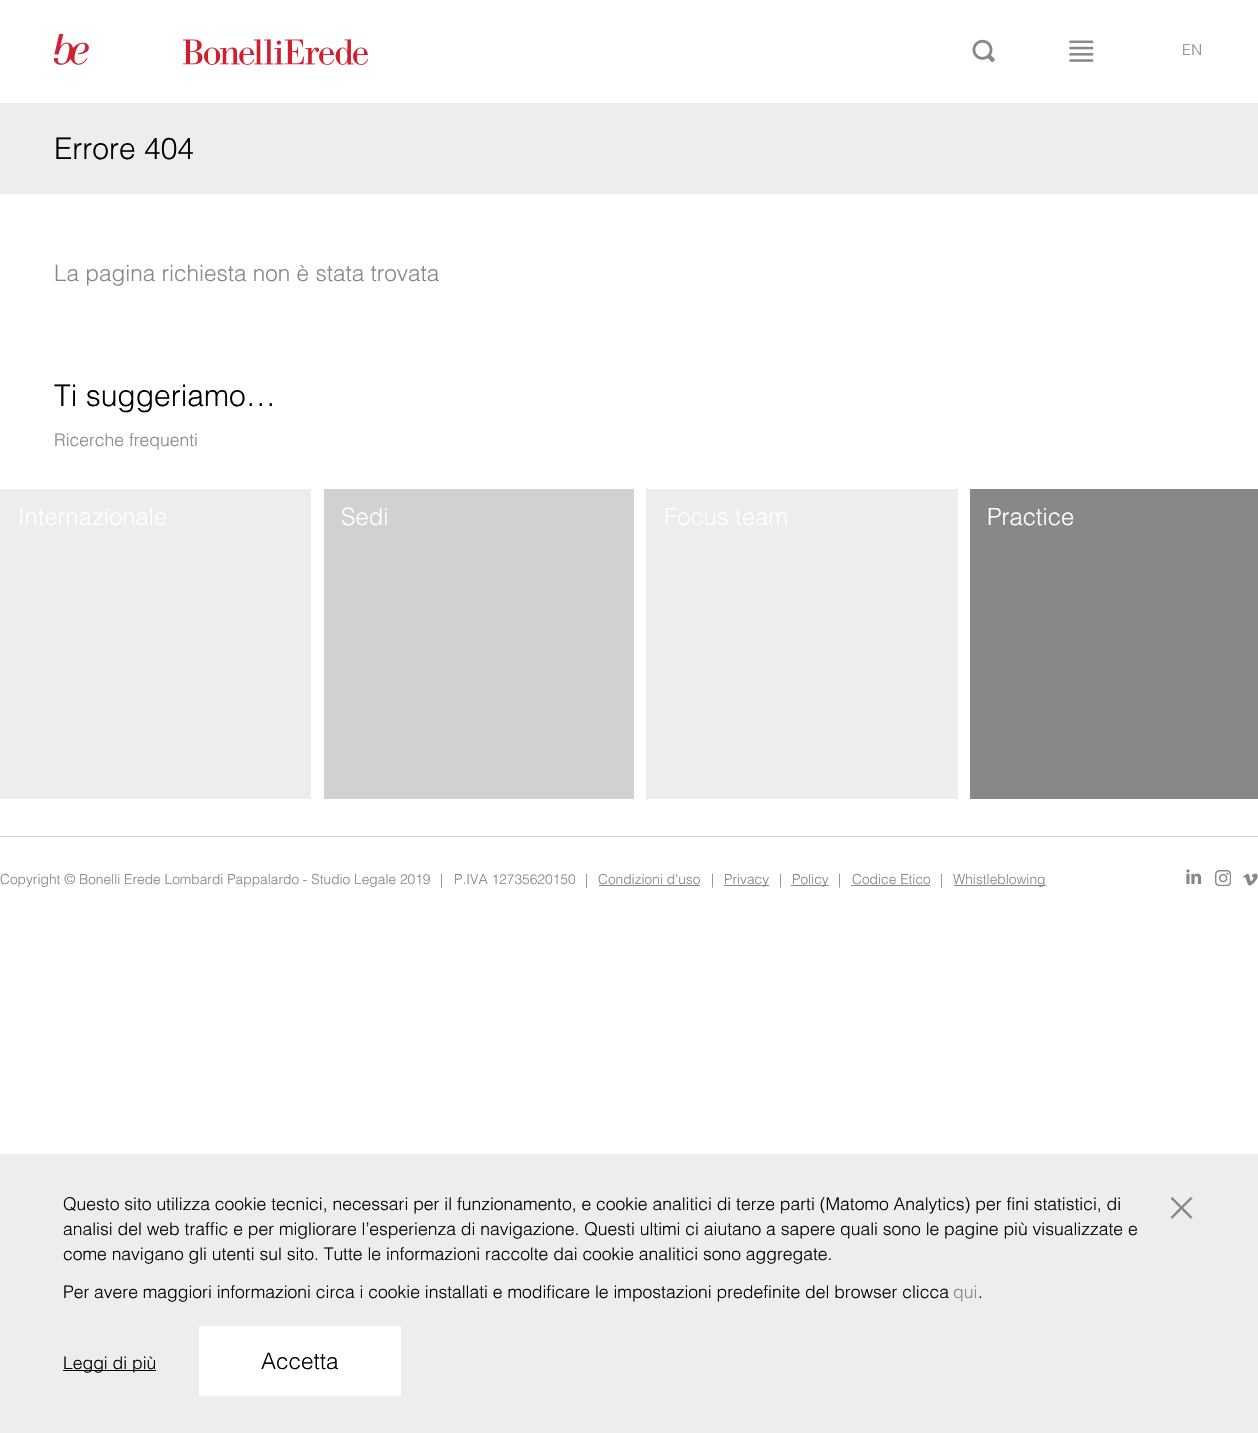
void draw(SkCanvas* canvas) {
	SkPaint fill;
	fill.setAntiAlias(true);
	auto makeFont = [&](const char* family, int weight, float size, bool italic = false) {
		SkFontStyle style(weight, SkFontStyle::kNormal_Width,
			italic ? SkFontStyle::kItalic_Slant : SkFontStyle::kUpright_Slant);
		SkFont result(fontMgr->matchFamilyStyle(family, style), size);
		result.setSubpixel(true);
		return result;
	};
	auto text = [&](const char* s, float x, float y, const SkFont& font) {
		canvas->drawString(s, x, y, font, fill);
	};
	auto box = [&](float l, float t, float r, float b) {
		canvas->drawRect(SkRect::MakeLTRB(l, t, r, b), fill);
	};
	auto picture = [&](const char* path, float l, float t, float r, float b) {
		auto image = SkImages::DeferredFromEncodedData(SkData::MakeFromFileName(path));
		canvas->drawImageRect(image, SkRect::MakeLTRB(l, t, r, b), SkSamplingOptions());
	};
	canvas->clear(0xFFFFFFFF);
	picture("image0.png", 54, 34, 369, 65);
	picture("image1.png", 972, 39, 995, 63);
	picture("image2.png", 1069, 40, 1094, 62);
	fill.setColor(0xFFECEDED);
	box(0, 103, 1258, 194);
	box(0, 489, 311, 799);
	fill.setColor(0xFFCFD1D2);
	box(324, 489, 634, 799);
	fill.setColor(0xFFECEDED);
	box(646, 489, 958, 799);
	fill.setColor(0xFF87888A);
	box(970, 489, 1258, 799);
	fill.setColor(0xFFCFD1D2);
	box(0, 836, 1258, 837);
	fill.setColor(0xFF87888A);
	box(599, 885, 700, 886);
	box(724, 885, 769, 886);
	box(791, 885, 829, 886);
	box(851, 885, 930, 886);
	box(954, 885, 1046, 886);
	picture("image3.png", 1186, 869, 1202, 884);
	picture("image4.png", 1215, 870, 1231, 886);
	picture("image5.png", 1243, 873, 1258, 886);
	fill.setColor(0xFFECEDED);
	box(0, 1154, 1258, 1433);
	fill.setColor(0xFF000000);
	box(63, 1370, 156, 1371);
	fill.setColor(0xFFFFFFFF);
	box(199, 1326, 401, 1396);
	auto font1 = makeFont("Helvetica", 300, 15);
	fill.setColor(0xFF87888A);
	text("EN", 1182, 55, font1);
	auto font2 = makeFont("Helvetica", 300, 30);
	fill.setColor(0xFF000000);
	text("Errore 404", 54, 159, font2);
	auto font3 = makeFont("Helvetica", 300, 22.5f);
	fill.setColor(0xFF87888A);
	text("La pagina richiesta non è stata trovata", 54, 281, font3);
	fill.setColor(0xFF000000);
	text("Ti suggeriamo…", 54, 406, font2);
	auto font4 = makeFont("Helvetica", 300, 17.5f);
	fill.setColor(0xFF87888A);
	text("Ricerche frequenti", 54, 446, font4);
	auto font5 = makeFont("Helvetica", 300, 23.75f);
	fill.setColor(0xFFFFFFFF);
	text("Internazionale", 18, 525, font5);
	text("Sedi", 341, 525, font5);
	text("Focus team", 664, 525, font5);
	text("Practice", 987, 525, font5);
	auto font6 = makeFont("Helvetica", 300, 13.75f);
	fill.setColor(0xFF87888A);
	text("Copyright © Bonelli Erede Lombardi Pappalardo - Studio Legale 2019", 0, 884, font6);
	text("|", 440, 884, font6);
	text("P.IVA 12735620150", 454, 884, font6);
	text("|", 585, 884, font6);
	text("Condizioni d'uso", 598, 884, font6);
	text("|", 711, 884, font6);
	text("Privacy", 724, 884, font6);
	text("|", 779, 884, font6);
	text("Policy", 792, 884, font6);
	text("|", 838, 884, font6);
	text("Codice Etico", 852, 884, font6);
	text("|", 940, 884, font6);
	text("Whistleblowing", 953, 884, font6);
	fill.setColor(0xFF000000);
	text("Questo sito utilizza cookie tecnici, necessari per il funzionamento, e cookie analitici di terze parti (Matomo Analytics) per fini statistici, di", 63, 1210, font4);
	text("analisi del web traffic e per migliorare l’esperienza di navigazione. Questi ultimi ci aiutano a sapere quali sono le pagine più visualizzate e", 63, 1235, font4);
	text("come navigano gli utenti sul sito. Tutte le informazioni raccolte dai cookie analitici sono aggregate.", 63, 1260, font4);
	text("Per avere maggiori informazioni circa i cookie installati e modificare le impostazioni predefinite del browser clicca", 63, 1298, font4);
	fill.setColor(0xFF87888A);
	text("qui", 953, 1298, font4);
	fill.setColor(0xFF000000);
	text(".", 978, 1298, font4);
	auto font7 = makeFont("Helvetica", 300, 44);
	fill.setColor(0xFF87888A);
	text("×", 1167, 1219, font7);
	fill.setColor(0xFF000000);
	text("Leggi di più", 63, 1369, font4);
	text("Accetta", 261, 1369, font3);
}
